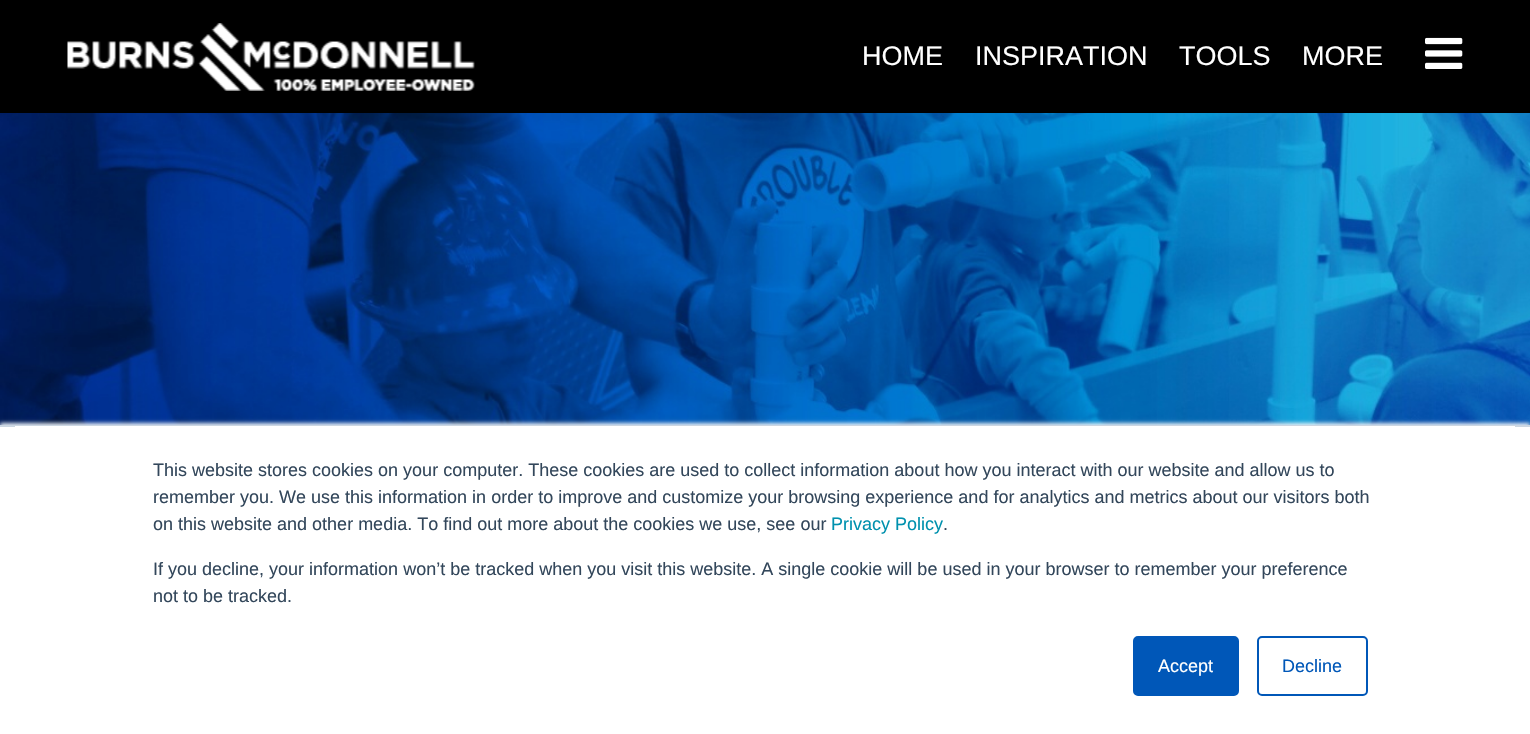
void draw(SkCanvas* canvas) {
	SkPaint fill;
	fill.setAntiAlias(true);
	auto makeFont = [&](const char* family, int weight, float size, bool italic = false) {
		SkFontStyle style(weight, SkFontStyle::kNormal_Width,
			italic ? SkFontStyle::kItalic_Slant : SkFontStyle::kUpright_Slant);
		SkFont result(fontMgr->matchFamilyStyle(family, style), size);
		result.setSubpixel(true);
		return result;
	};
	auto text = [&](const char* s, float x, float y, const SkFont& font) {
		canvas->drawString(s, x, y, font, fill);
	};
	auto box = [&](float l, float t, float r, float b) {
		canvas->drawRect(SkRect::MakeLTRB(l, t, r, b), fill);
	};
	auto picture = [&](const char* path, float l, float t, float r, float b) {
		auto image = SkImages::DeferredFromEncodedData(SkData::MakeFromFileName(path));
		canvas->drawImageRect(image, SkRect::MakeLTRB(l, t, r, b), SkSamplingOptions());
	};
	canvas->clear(0xFFFFFFFF);
	fill.setColor(0xFF000000);
	box(0, 0, 1530, 113);
	picture("image0.png", 67, 23, 475, 91);
	picture("image1.png", 1425, 37, 1463, 69);
	picture("image2.png", 0, 113, 1530, 425);
	fill.setColor(0xFFEAF0F6);
	fill.setMaskFilter(SkMaskFilter::MakeBlur(kNormal_SkBlurStyle, 2));
	canvas->drawRect(SkRect::MakeLTRB(0, 423, 1530, 734), fill);
	fill.setMaskFilter(nullptr);
	fill.setColor(0xFFFFFFFF);
	box(0, 427, 1530, 734);
	fill.setColor(0xFFCBD6E2);
	box(0, 425, 1530, 427);
	fill.setColor(0xFFFFFFFF);
	box(15, 426, 1515, 427);
	fill.setColor(0xFF0057B8);
	canvas->drawRoundRect(SkRect::MakeLTRB(1134, 637, 1238, 695), 4, 4, fill);
	fill.setStyle(SkPaint::kStroke_Style);
	fill.setStrokeWidth(2);
	canvas->drawRoundRect(SkRect::MakeLTRB(1134, 637, 1238, 695), 4, 4, fill);
	canvas->drawRoundRect(SkRect::MakeLTRB(1258, 637, 1367, 695), 4, 4, fill);
	auto font1 = makeFont("Liberation Sans", 400, 27);
	fill.setStyle(SkPaint::kFill_Style);
	fill.setColor(0xFFFFFFFF);
	text("HOME", 862, 65, font1);
	text("INSPIRATION", 975, 65, font1);
	text("TOOLS", 1179, 65, font1);
	text("MORE", 1302, 65, font1);
	auto font2 = makeFont("Liberation Sans", 400, 18);
	fill.setColor(0xFF33475B);
	text("This website stores cookies on your computer. These cookies are used to collect information about how you interact with our website and allow us to", 153, 476, font2);
	text("remember you. We use this information in order to improve and customize your browsing experience and for analytics and metrics about our visitors both", 153, 503, font2);
	text("on this website and other media. To find out more about the cookies we use, see our", 153, 530, font2);
	fill.setColor(0xFF0091AE);
	text("Privacy Policy", 831, 530, font2);
	fill.setColor(0xFF33475B);
	text(".", 943, 530, font2);
	text("If you decline, your information won’t be tracked when you visit this website. A single cookie will be used in your browser to remember your preference", 153, 575, font2);
	text("not to be tracked.", 153, 602, font2);
	fill.setColor(0xFFFFFFFF);
	text("Accept", 1158, 672, font2);
	fill.setColor(0xFF0057B8);
	text("Decline", 1282, 672, font2);
}
